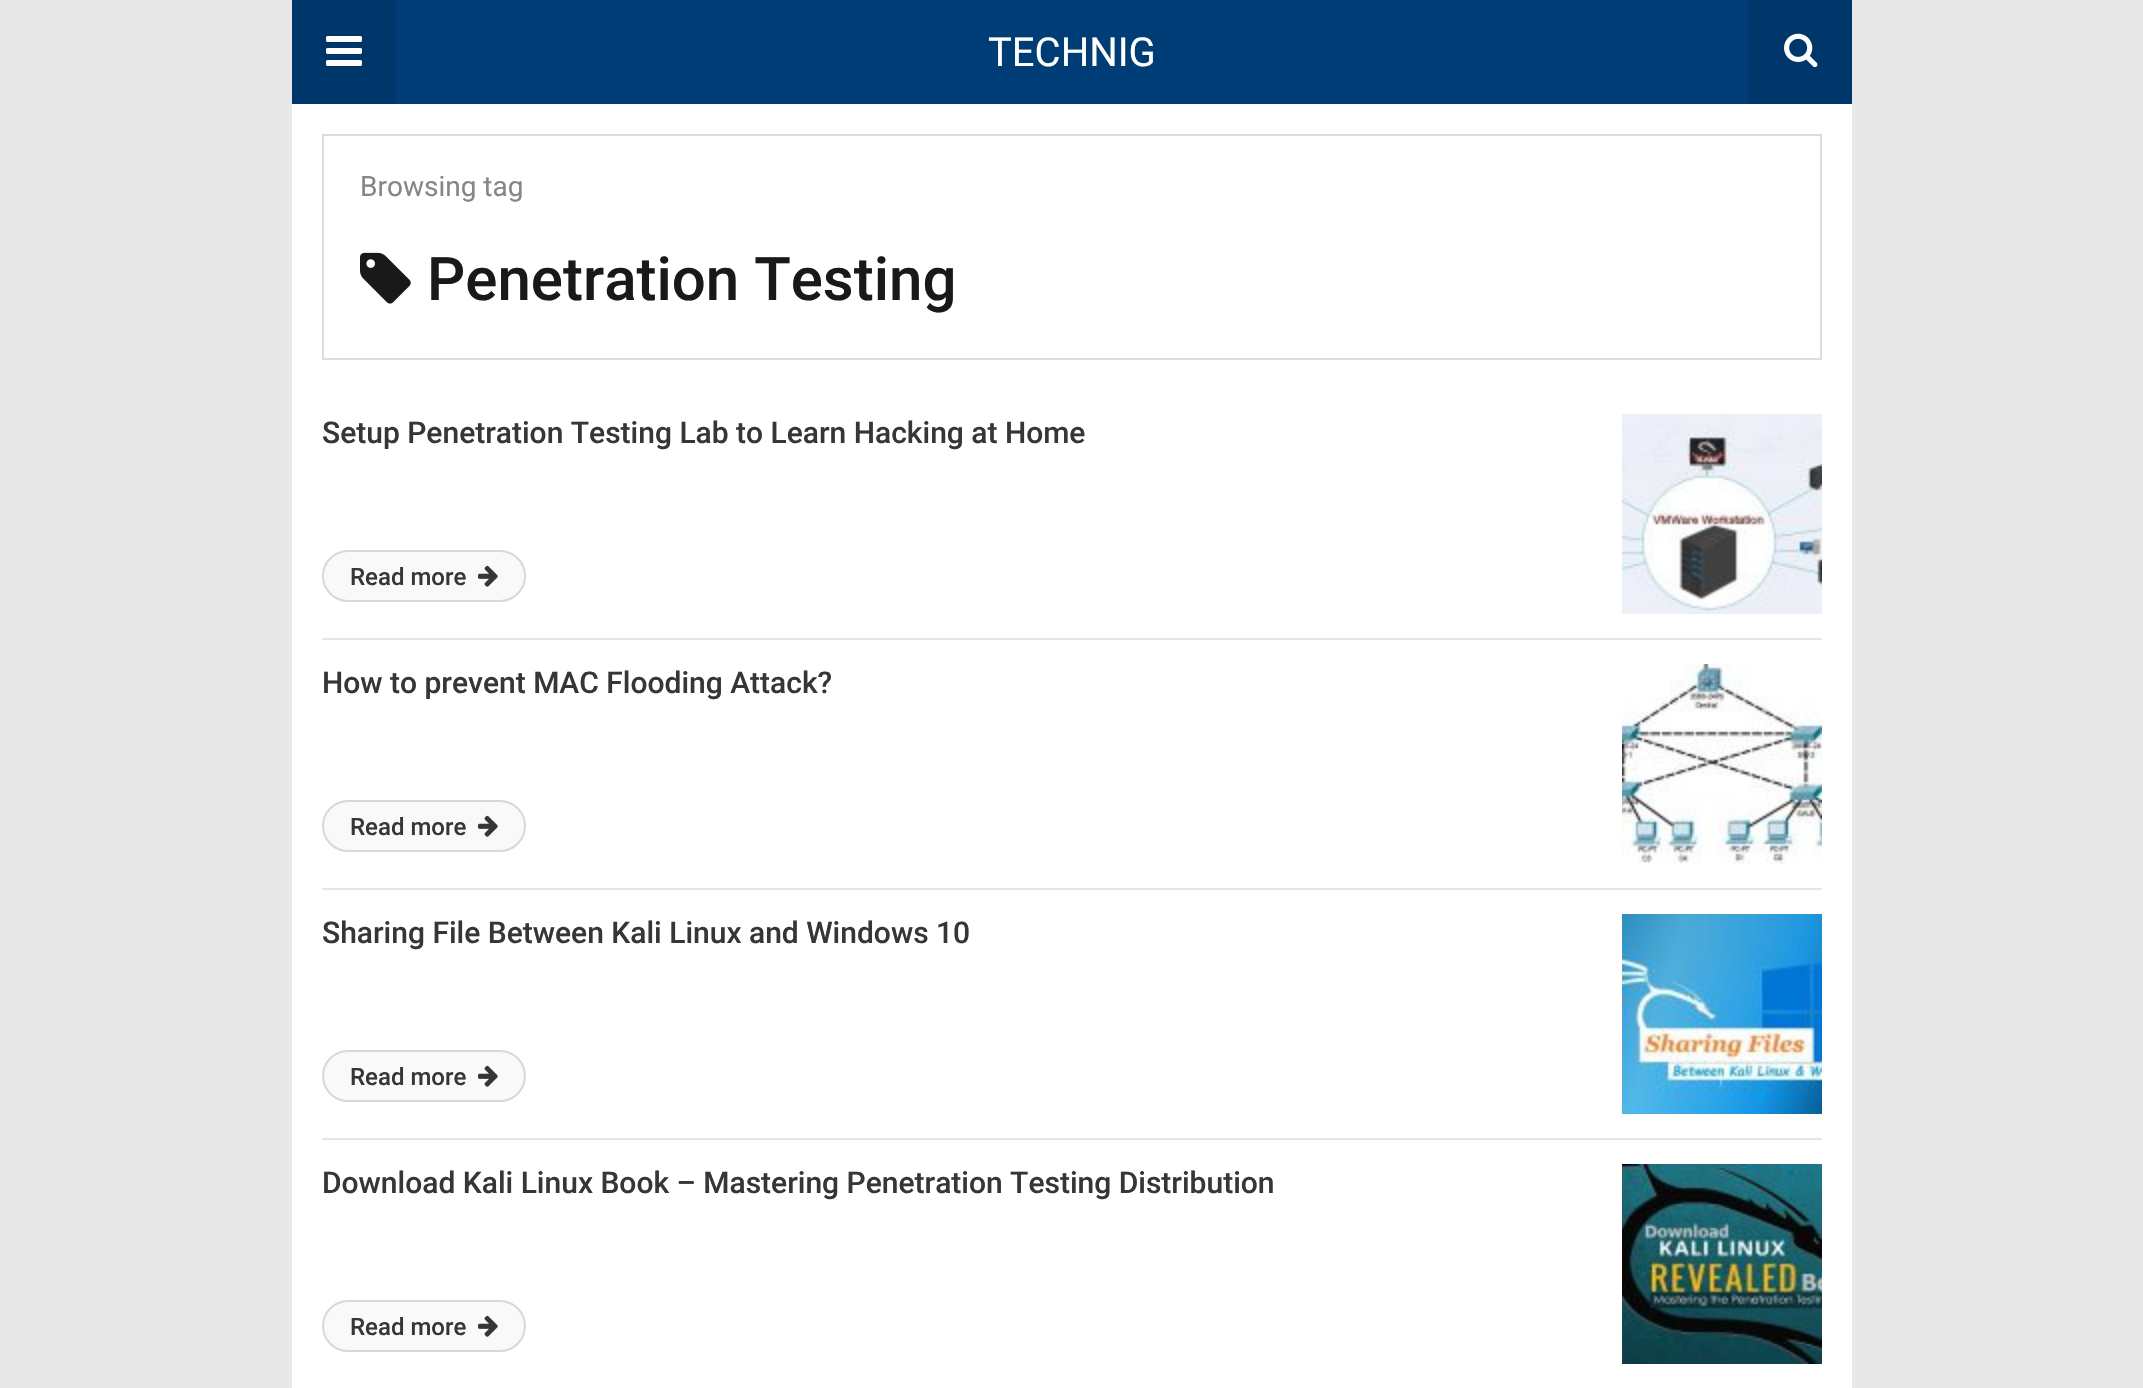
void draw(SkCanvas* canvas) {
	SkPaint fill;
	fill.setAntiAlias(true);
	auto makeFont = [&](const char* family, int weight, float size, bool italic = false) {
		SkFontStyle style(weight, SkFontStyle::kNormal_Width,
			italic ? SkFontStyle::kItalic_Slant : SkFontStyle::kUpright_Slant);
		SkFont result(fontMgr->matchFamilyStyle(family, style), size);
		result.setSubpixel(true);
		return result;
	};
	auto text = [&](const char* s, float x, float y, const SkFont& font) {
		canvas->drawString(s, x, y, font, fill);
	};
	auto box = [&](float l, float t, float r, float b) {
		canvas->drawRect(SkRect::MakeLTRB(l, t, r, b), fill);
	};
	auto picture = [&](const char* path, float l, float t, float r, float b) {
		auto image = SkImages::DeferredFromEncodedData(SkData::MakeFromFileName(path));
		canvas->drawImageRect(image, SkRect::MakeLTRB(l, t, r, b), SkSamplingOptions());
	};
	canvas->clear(0xFFE8E8E8);
	fill.setColor(0xFFFFFFFF);
	box(292, 104, 1852, 1388);
	fill.setColor(0xFF003D77);
	box(396, 0, 1748, 104);
	fill.setColor(0xFF00376B);
	box(292, 0, 396, 104);
	picture("image0.png", 326, 36, 362, 66);
	box(1748, 0, 1852, 104);
	picture("image1.png", 1784, 33, 1818, 68);
	fill.setStyle(SkPaint::kStroke_Style);
	fill.setStrokeWidth(2);
	fill.setColor(0xFFDCDCDC);
	canvas->drawRect(SkRect::MakeLTRB(323, 135, 1821, 359), fill);
	picture("image2.png", 360, 252, 411, 304);
	fill.setStyle(SkPaint::kFill_Style);
	fill.setColor(0xFFE6E6E6);
	box(322, 638, 1822, 640);
	picture("image3.png", 1622, 414, 1822, 614);
	fill.setColor(0xFFF9F9F9);
	canvas->drawRoundRect(SkRect::MakeLTRB(323, 551, 525, 601), 25, 25, fill);
	fill.setStyle(SkPaint::kStroke_Style);
	fill.setColor(0xFFD8D8D8);
	canvas->drawRoundRect(SkRect::MakeLTRB(323, 551, 525, 601), 25, 25, fill);
	picture("image4.png", 478, 565, 498, 587);
	fill.setStyle(SkPaint::kFill_Style);
	fill.setColor(0xFFE6E6E6);
	box(322, 888, 1822, 890);
	picture("image5.png", 1622, 664, 1822, 864);
	fill.setColor(0xFFF9F9F9);
	canvas->drawRoundRect(SkRect::MakeLTRB(323, 801, 525, 851), 25, 25, fill);
	fill.setStyle(SkPaint::kStroke_Style);
	fill.setColor(0xFFD8D8D8);
	canvas->drawRoundRect(SkRect::MakeLTRB(323, 801, 525, 851), 25, 25, fill);
	picture("image4.png", 478, 815, 498, 837);
	fill.setStyle(SkPaint::kFill_Style);
	fill.setColor(0xFFE6E6E6);
	box(322, 1138, 1822, 1140);
	picture("image6.png", 1622, 914, 1822, 1114);
	fill.setColor(0xFFF9F9F9);
	canvas->drawRoundRect(SkRect::MakeLTRB(323, 1051, 525, 1101), 25, 25, fill);
	fill.setStyle(SkPaint::kStroke_Style);
	fill.setColor(0xFFD8D8D8);
	canvas->drawRoundRect(SkRect::MakeLTRB(323, 1051, 525, 1101), 25, 25, fill);
	picture("image4.png", 478, 1065, 498, 1087);
	picture("image7.png", 1622, 1164, 1822, 1364);
	fill.setStyle(SkPaint::kFill_Style);
	fill.setColor(0xFFF9F9F9);
	canvas->drawRoundRect(SkRect::MakeLTRB(323, 1301, 525, 1351), 25, 25, fill);
	fill.setStyle(SkPaint::kStroke_Style);
	fill.setColor(0xFFD8D8D8);
	canvas->drawRoundRect(SkRect::MakeLTRB(323, 1301, 525, 1351), 25, 25, fill);
	picture("image4.png", 478, 1315, 498, 1337);
	auto font1 = makeFont("Roboto", 400, 40);
	fill.setStyle(SkPaint::kFill_Style);
	fill.setColor(0xFFFFFFFF);
	text("TECHNIG", 988, 66, font1);
	auto font2 = makeFont("Roboto", 400, 28);
	fill.setColor(0xFF868686);
	text("Browsing tag", 360, 196, font2);
	auto font3 = makeFont("Roboto", 500, 60);
	fill.setColor(0xFF191919);
	text("Penetration Testing", 427, 300, font3);
	auto font4 = makeFont("Roboto", 500, 30);
	fill.setColor(0xFF363636);
	text("Setup Penetration Testing Lab to Learn Hacking at Home", 322, 443, font4);
	auto font5 = makeFont("Roboto", 500, 24);
	text("Read more", 350, 585, font5);
	text("How to prevent MAC Flooding Attack?", 322, 693, font4);
	text("Read more", 350, 835, font5);
	text("Sharing File Between Kali Linux and Windows 10", 322, 943, font4);
	text("Read more", 350, 1085, font5);
	text("Download Kali Linux Book – Mastering Penetration Testing Distribution", 322, 1193, font4);
	text("Read more", 350, 1335, font5);
}
